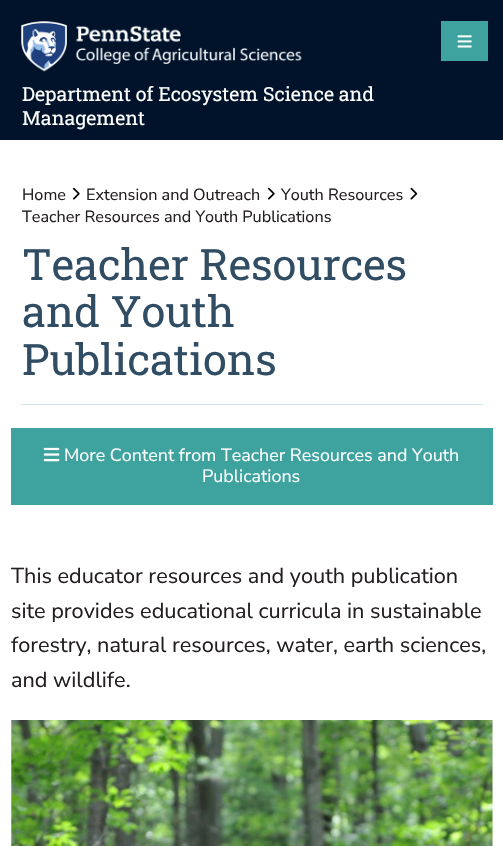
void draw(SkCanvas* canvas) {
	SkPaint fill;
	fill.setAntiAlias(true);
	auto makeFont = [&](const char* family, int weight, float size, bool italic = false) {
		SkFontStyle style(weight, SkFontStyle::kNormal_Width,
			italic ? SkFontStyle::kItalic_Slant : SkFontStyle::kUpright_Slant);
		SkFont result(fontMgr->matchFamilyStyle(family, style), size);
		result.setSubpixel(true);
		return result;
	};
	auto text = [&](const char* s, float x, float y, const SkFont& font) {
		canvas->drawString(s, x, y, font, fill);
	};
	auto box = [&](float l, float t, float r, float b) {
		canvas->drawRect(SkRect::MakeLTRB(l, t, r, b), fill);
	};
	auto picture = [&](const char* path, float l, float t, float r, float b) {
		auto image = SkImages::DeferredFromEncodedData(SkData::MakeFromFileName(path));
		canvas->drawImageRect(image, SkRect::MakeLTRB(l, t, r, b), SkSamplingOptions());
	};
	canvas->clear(0xFFFFFFFF);
	fill.setColor(0xFF00132B);
	box(0, 0, 503, 140);
	picture("image0.png", 21, 21, 302, 72);
	fill.setColor(0xFF3EA39E);
	box(441, 21, 488, 61);
	picture("image1.png", 457, 35, 472, 48);
	fill.setColor(0xFFCFE8E7);
	box(21, 404, 483, 405);
	picture("image2.png", 73, 187, 80, 200);
	picture("image2.png", 268, 187, 275, 200);
	picture("image3.png", 410, 187, 418, 200);
	fill.setColor(0xFF3EA39E);
	box(11, 428, 493, 505);
	picture("image4.png", 43, 447, 60, 462);
	picture("image5.png", 11, 720, 493, 846);
	auto font1 = makeFont("Roboto Slab", 400, 19.5f);
	fill.setColor(0xFFFFFFFF);
	text("Department of Ecosystem Science and", 22, 101, font1);
	text("Management", 22, 125, font1);
	auto font2 = makeFont("Nunito Sans", 400, 16.25f);
	fill.setColor(0xFF231E20);
	text("Home", 22, 200, font2);
	text("Extension and Outreach", 86, 200, font2);
	text("Youth Resources", 281, 200, font2);
	text("Teacher Resources and Youth Publications", 22, 222, font2);
	auto font3 = makeFont("Roboto Slab", 400, 43.25f);
	fill.setColor(0xFF314D64);
	text("Teacher Resources", 22, 280, font3);
	text("and Youth", 22, 327, font3);
	text("Publications", 22, 375, font3);
	auto font4 = makeFont("Nunito Sans", 400, 17.9f);
	fill.setColor(0xFFFFFFFF);
	text("More Content from Teacher Resources and Youth", 64, 461, font4);
	text("Publications", 202, 482, font4);
	auto font5 = makeFont("Nunito Sans", 400, 21.7f);
	fill.setColor(0xFF231E20);
	text("This educator resources and youth publication", 11, 583, font5);
	text("site provides educational curricula in sustainable", 11, 618, font5);
	text("forestry, natural resources, water, earth sciences,", 11, 652, font5);
	text("and wildlife.", 11, 687, font5);
}
